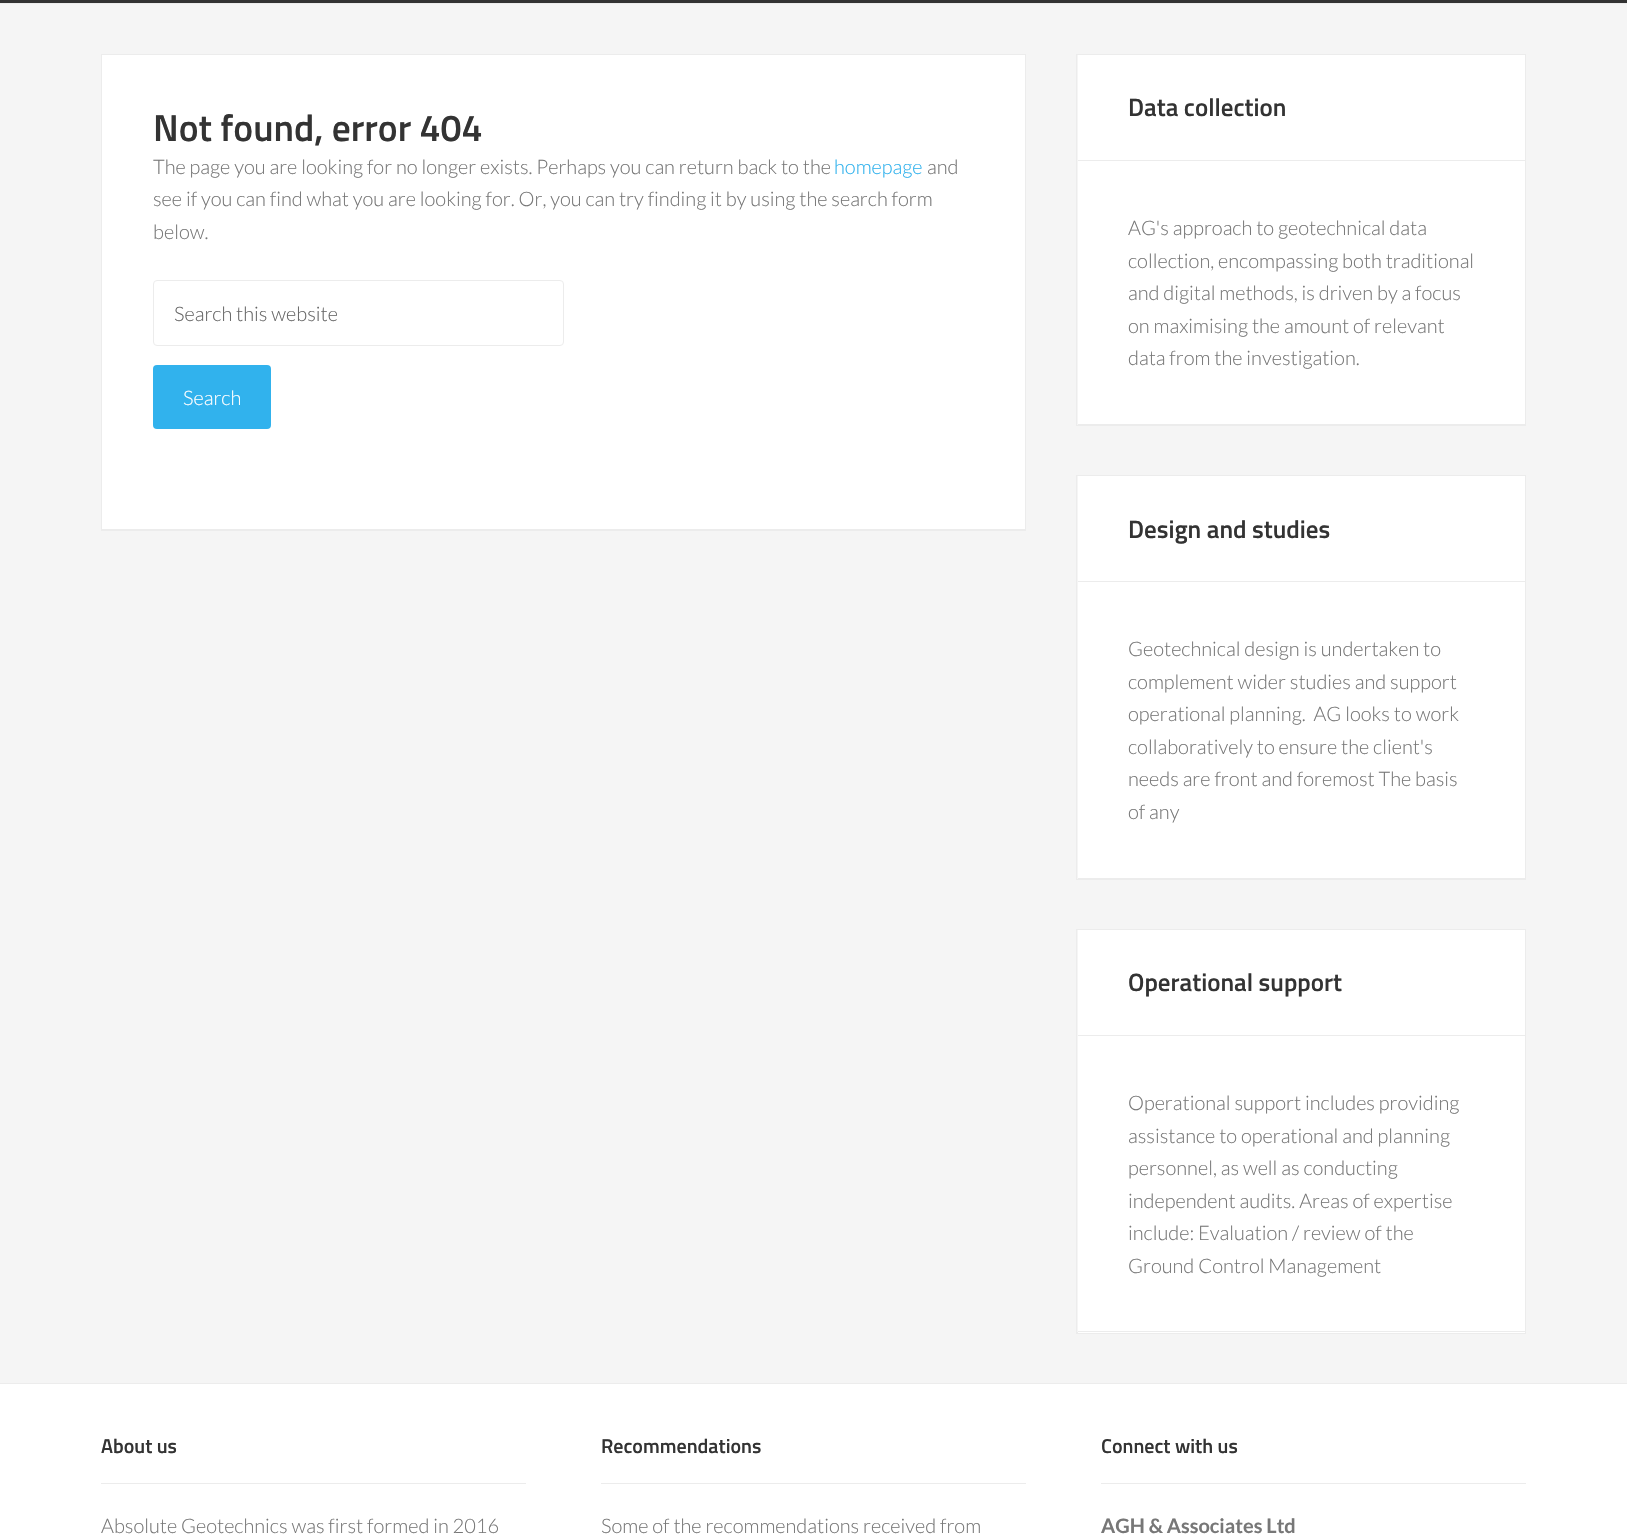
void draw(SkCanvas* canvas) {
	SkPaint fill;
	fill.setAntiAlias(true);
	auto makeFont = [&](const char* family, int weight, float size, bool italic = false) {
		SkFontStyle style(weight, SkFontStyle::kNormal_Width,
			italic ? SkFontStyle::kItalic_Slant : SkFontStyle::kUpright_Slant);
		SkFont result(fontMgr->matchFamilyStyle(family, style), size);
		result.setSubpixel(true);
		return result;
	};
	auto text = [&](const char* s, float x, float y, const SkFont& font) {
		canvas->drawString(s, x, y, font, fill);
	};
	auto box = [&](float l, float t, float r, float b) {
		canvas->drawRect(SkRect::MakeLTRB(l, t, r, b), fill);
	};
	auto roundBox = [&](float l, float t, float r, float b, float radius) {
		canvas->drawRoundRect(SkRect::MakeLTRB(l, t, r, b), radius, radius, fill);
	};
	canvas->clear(0xFFFFFFFF);
	fill.setColor(0xFF333333);
	box(0, 0, 1627, 3);
	fill.setColor(0xFFF5F5F5);
	box(0, 4, 1627, 1383);
	fill.setColor(0xFFECECEC);
	box(0, 3, 1627, 4);
	canvas->drawPath(SkPathBuilder().moveTo(101, 55).lineTo(101, 531).lineTo(1026, 531).lineTo(1026, 530).lineTo(101, 530).close().detach(), fill);
	fill.setColor(0xFFFFFFFF);
	canvas->drawRect(SkRect::MakeLTRB(101.5f, 54.5f, 1025.5f, 529.5f), fill);
	fill.setStyle(SkPaint::kStroke_Style);
	fill.setStrokeWidth(1);
	fill.setColor(0xFFECECEC);
	canvas->drawRect(SkRect::MakeLTRB(101.5f, 54.5f, 1025.5f, 529.5f), fill);
	canvas->drawRoundRect(SkRect::MakeLTRB(153.5f, 280.5f, 563.5f, 345.5f), 3.5f, 3.5f, fill);
	fill.setStyle(SkPaint::kFill_Style);
	fill.setColor(0xFF31B2ED);
	roundBox(153, 365, 271, 429, 4);
	fill.setColor(0xFFECECEC);
	canvas->drawPath(SkPathBuilder().moveTo(1076, 55).lineTo(1076, 426).lineTo(1526, 426).lineTo(1526, 425).lineTo(1076, 425).close().detach(), fill);
	fill.setColor(0xFFFFFFFF);
	box(1078, 55, 1525, 424);
	fill.setColor(0xFFECECEC);
	box(1076, 54, 1526, 55);
	box(1525, 54, 1526, 425);
	box(1076, 54, 1077, 425);
	box(1078, 424, 1525, 425);
	box(1078, 160, 1525, 161);
	canvas->drawPath(SkPathBuilder().moveTo(1076, 476).lineTo(1076, 880).lineTo(1526, 880).lineTo(1526, 879).lineTo(1076, 879).close().detach(), fill);
	fill.setColor(0xFFFFFFFF);
	box(1078, 476, 1525, 878);
	fill.setColor(0xFFECECEC);
	box(1076, 475, 1526, 476);
	box(1525, 475, 1526, 879);
	box(1076, 475, 1077, 879);
	box(1078, 878, 1525, 879);
	box(1078, 581, 1525, 582);
	canvas->drawPath(SkPathBuilder().moveTo(1076, 930).lineTo(1076, 1334).lineTo(1526, 1334).lineTo(1526, 1332).lineTo(1076, 1332).close().detach(), fill);
	fill.setColor(0xFFFFFFFF);
	box(1078, 930, 1525, 1333);
	fill.setColor(0xFFECECEC);
	box(1076, 929, 1526, 930);
	box(1525, 929, 1526, 1333);
	box(1076, 929, 1077, 1333);
	box(1078, 1331, 1525, 1332);
	box(1078, 1035, 1525, 1036);
	box(0, 1383, 1627, 1384);
	box(101, 1483, 526, 1484);
	box(601, 1483, 1026, 1484);
	box(1101, 1483, 1526, 1484);
	auto font1 = makeFont("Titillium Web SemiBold", 600, 37.5f);
	fill.setColor(0xFF333333);
	text("Not found, error 404", 153, 141, font1);
	auto font2 = makeFont("Lato", 300, 20);
	fill.setColor(0xFF777777);
	text("The page you are looking for no longer exists. Perhaps you can return back to the", 153, 174, font2);
	fill.setColor(0xFF31B2ED);
	text("homepage", 834, 174, font2);
	fill.setColor(0xFF777777);
	text("and", 927, 174, font2);
	text("see if you can find what you are looking for. Or, you can try finding it by using the search form", 153, 206, font2);
	text("below.", 153, 239, font2);
	fill.setColor(0xFF666666);
	text("Search this website", 174, 321, font2);
	fill.setColor(0xFFFFFFFF);
	text("Search", 183, 405, font2);
	auto font3 = makeFont("Titillium Web SemiBold", 600, 25);
	fill.setColor(0xFF333333);
	text("Data collection", 1128, 116, font3);
	fill.setColor(0xFF777777);
	text("AG's approach to geotechnical data", 1128, 235, font2);
	text("collection, encompassing both traditional", 1128, 268, font2);
	text("and digital methods, is driven by a focus", 1128, 300, font2);
	text("on maximising the amount of relevant", 1128, 333, font2);
	text("data from the investigation.", 1128, 365, font2);
	fill.setColor(0xFF333333);
	text("Design and studies", 1128, 538, font3);
	fill.setColor(0xFF777777);
	text("Geotechnical design is undertaken to", 1128, 656, font2);
	text("complement wider studies and support", 1128, 689, font2);
	text("operational planning.  AG looks to work", 1128, 721, font2);
	text("collaboratively to ensure the client's", 1128, 754, font2);
	text("needs are front and foremost The basis", 1128, 786, font2);
	text("of any", 1128, 819, font2);
	fill.setColor(0xFF333333);
	text("Operational support", 1128, 991, font3);
	fill.setColor(0xFF777777);
	text("Operational support includes providing", 1128, 1110, font2);
	text("assistance to operational and planning", 1128, 1143, font2);
	text("personnel, as well as conducting", 1128, 1175, font2);
	text("independent audits. Areas of expertise", 1128, 1208, font2);
	text("include: Evaluation / review of the", 1128, 1240, font2);
	text("Ground Control Management", 1128, 1273, font2);
	auto font4 = makeFont("Titillium Web SemiBold", 600, 20);
	fill.setColor(0xFF333333);
	text("About us", 101, 1453, font4);
	fill.setColor(0xFF777777);
	text("Absolute Geotechnics was first formed in 2016", 101, 1533, font2);
	fill.setColor(0xFF333333);
	text("Recommendations", 601, 1453, font4);
	fill.setColor(0xFF777777);
	text("Some of the recommendations received from", 601, 1533, font2);
	fill.setColor(0xFF333333);
	text("Connect with us", 1101, 1453, font4);
	auto font5 = makeFont("Lato", 700, 20);
	fill.setColor(0xFF777777);
	text("AGH & Associates Ltd", 1101, 1533, font5);
}
